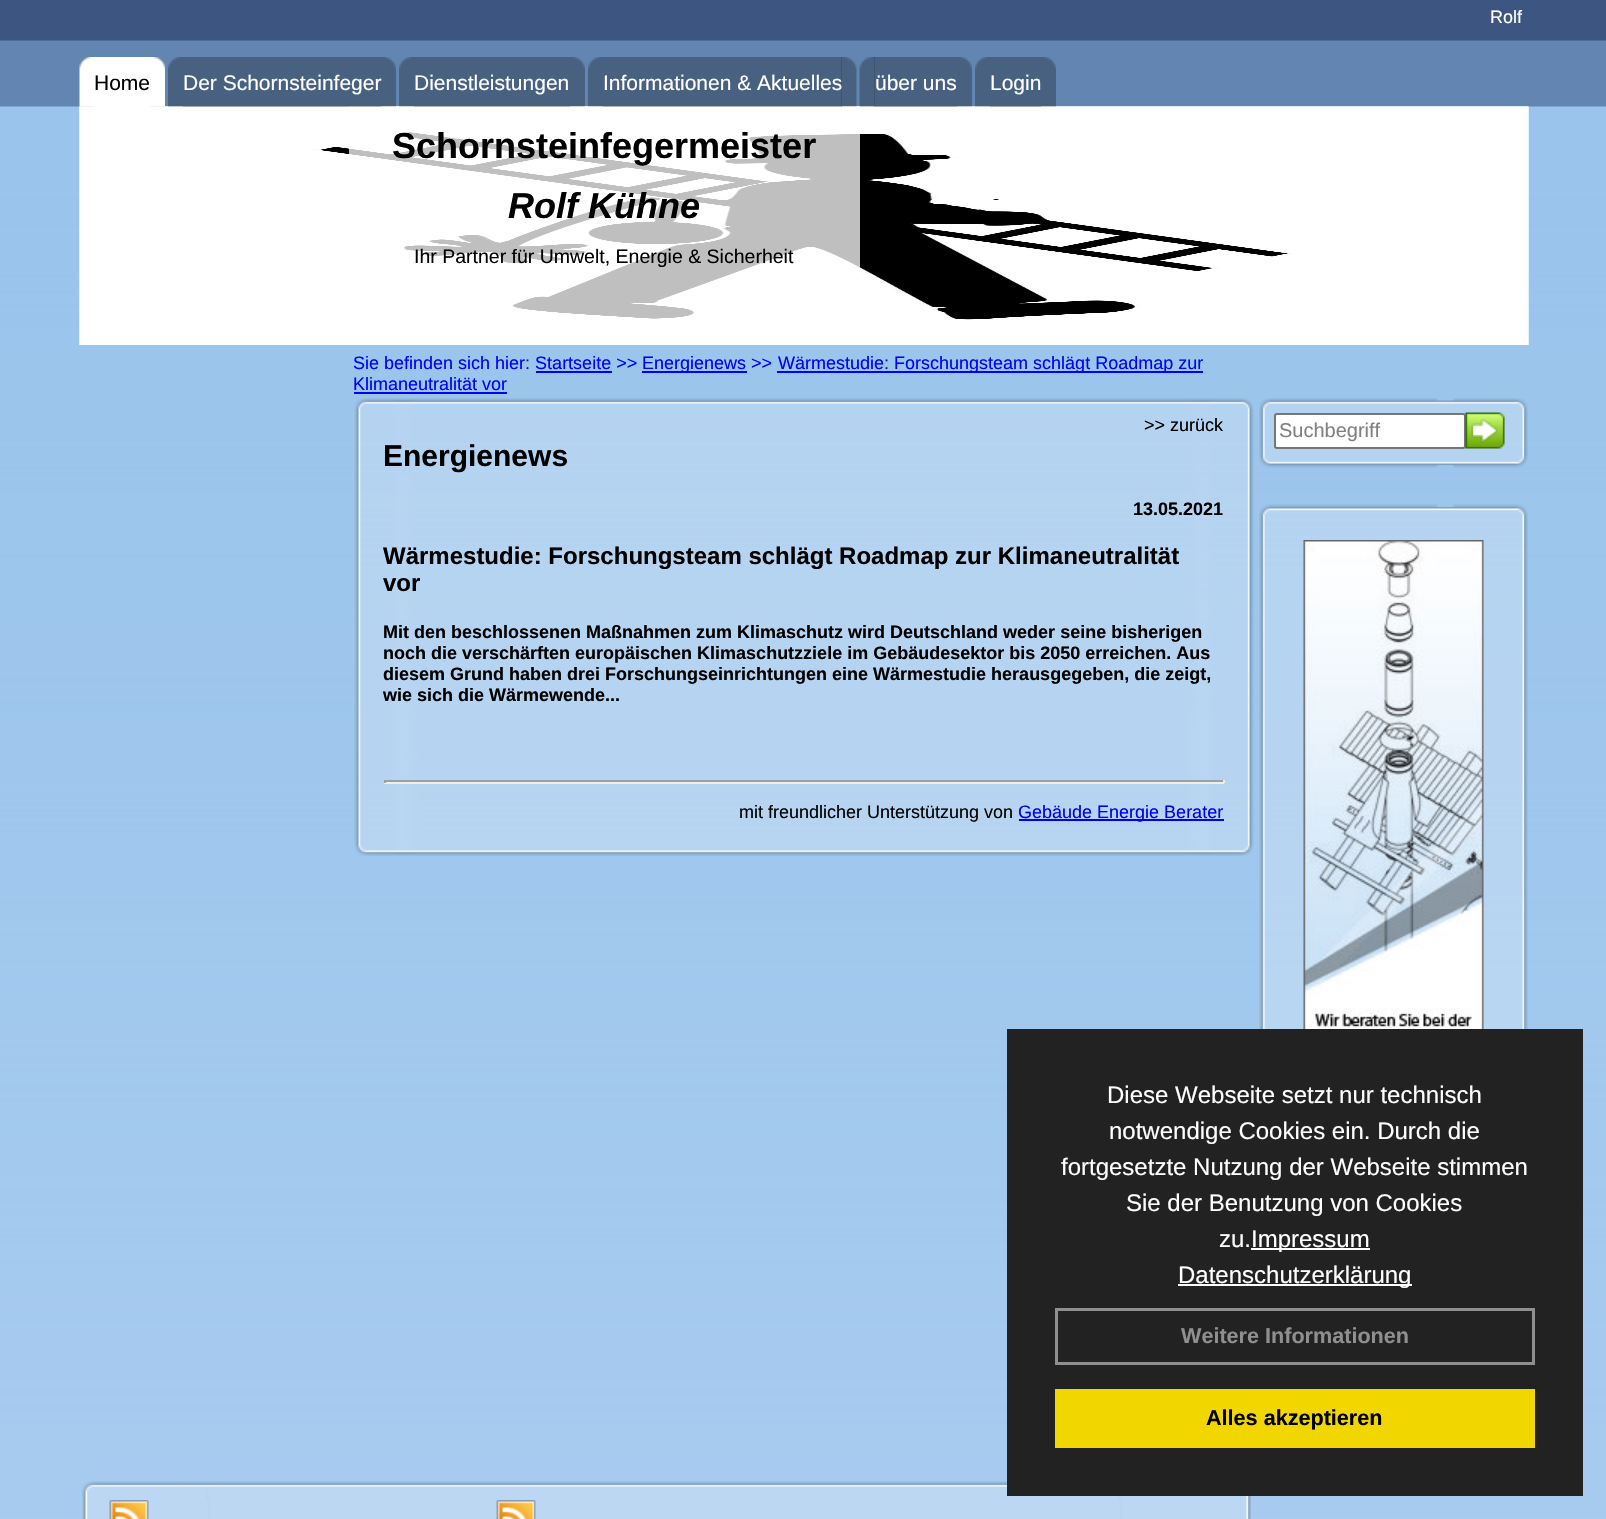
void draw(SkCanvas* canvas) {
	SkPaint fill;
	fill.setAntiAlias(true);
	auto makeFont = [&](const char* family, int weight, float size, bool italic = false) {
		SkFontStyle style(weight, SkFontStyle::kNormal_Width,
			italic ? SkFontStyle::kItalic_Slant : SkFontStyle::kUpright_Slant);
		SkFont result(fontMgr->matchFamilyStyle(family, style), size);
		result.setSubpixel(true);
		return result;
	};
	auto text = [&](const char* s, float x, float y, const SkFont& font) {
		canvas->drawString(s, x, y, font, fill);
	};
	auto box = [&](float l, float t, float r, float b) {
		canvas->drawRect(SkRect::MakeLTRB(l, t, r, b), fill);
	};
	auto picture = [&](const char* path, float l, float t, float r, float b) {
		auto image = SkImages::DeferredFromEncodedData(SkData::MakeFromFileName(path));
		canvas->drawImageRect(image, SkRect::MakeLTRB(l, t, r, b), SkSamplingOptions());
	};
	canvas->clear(0xFFFFFFFF);
	picture("image0.png", 0, 106, 1606, 1519);
	fill.setColor(0xFF3D5581);
	box(0, 0, 1606, 33);
	picture("image1.png", 0, 33, 1606, 107);
	picture("image11.png", 79, 106, 1529, 345);
	picture("image12.png", 79, 106, 1529, 345);
	picture("image2.png", 79, 57, 94, 107);
	fill.setColor(0xFFFFFFFF);
	box(94, 57, 150, 107);
	picture("image3.png", 150, 57, 165, 107);
	picture("image4.png", 168, 57, 183, 107);
	fill.setColor(0xBFFFFFFF);
	box(349, 106, 860, 319);
	fill.setColor(0x45000000);
	box(183, 57, 381, 107);
	picture("image5.png", 381, 57, 396, 107);
	picture("image6.png", 399, 57, 414, 107);
	box(414, 57, 570, 107);
	picture("image5.png", 570, 57, 585, 107);
	picture("image6.png", 588, 57, 603, 107);
	box(603, 57, 842, 107);
	picture("image8.png", 859, 57, 875, 107);
	box(874, 57, 957, 107);
	picture("image9.png", 957, 57, 972, 107);
	picture("image4.png", 975, 57, 990, 107);
	box(990, 57, 1041, 107);
	picture("image10.png", 1041, 57, 1056, 107);
	fill.setColor(0xFF0000FF);
	box(642, 371, 747, 373);
	box(777, 371, 1203, 373);
	box(536, 371, 612, 373);
	box(354, 392, 507, 394);
	picture("image13.png", 354, 398, 1254, 413);
	picture("image14.png", 354, 412, 1254, 842);
	fill.setColor(0xFF9F9F9F);
	box(384, 780, 1224, 782);
	fill.setColor(0xFFEEEEEE);
	box(1223, 780, 1225, 783);
	box(384, 782, 1224, 784);
	fill.setColor(0xFF9F9F9F);
	box(384, 780, 386, 783);
	fill.setColor(0xFF0000EE);
	box(1019, 819, 1224, 821);
	picture("image15.png", 354, 841, 1254, 856);
	picture("image16.png", 1259, 398, 1528, 413);
	picture("image17.png", 1259, 412, 1528, 453);
	fill.setColor(0xFFFFFFFF);
	canvas->drawRoundRect(SkRect::MakeLTRB(1275, 414, 1465, 448), 2, 2, fill);
	fill.setStyle(SkPaint::kStroke_Style);
	fill.setStrokeWidth(2);
	fill.setColor(0xFF767676);
	canvas->drawRoundRect(SkRect::MakeLTRB(1275, 414, 1465, 448), 2, 2, fill);
	picture("image18.png", 1465, 412, 1505, 449);
	picture("image19.png", 1259, 453, 1528, 468);
	picture("image20.png", 1259, 504, 1528, 519);
	picture("image21.png", 1259, 519, 1528, 1029);
	picture("image22.png", 1303, 540, 1484, 1029);
	picture("image23.png", 82, 1481, 1251, 1500);
	picture("image24.png", 82, 1500, 1251, 1519);
	picture("image25.png", 109, 1500, 149, 1519);
	picture("image25.png", 496, 1500, 536, 1519);
	fill.setStyle(SkPaint::kFill_Style);
	fill.setColor(0xFF222222);
	box(1007, 1029, 1583, 1496);
	fill.setColor(0xFFFFFFFF);
	box(1251, 1248, 1370, 1250);
	box(1178, 1284, 1412, 1286);
	fill.setStyle(SkPaint::kStroke_Style);
	fill.setStrokeWidth(3);
	fill.setColor(0xFF8F8F8F);
	canvas->drawRect(SkRect::MakeLTRB(1056.5f, 1309.5f, 1533.5f, 1363.5f), fill);
	fill.setStyle(SkPaint::kFill_Style);
	fill.setColor(0xFFF1D600);
	box(1055, 1389, 1535, 1448);
	auto font1 = makeFont("Liberation Sans", 400, 18);
	fill.setColor(0xFFFFFFFF);
	text("Rolf", 1490, 23, font1);
	auto font2 = makeFont("Liberation Sans", 400, 21);
	fill.setColor(0xFF000000);
	text("Home", 94, 90, font2);
	fill.setColor(0xFFFFFFFF);
	text("Der Schornsteinfeger", 183, 90, font2);
	text("Dienstleistungen", 414, 90, font2);
	text("Informationen & Aktuelles", 603, 90, font2);
	picture("image7.png", 841, 57, 857, 107);
	text("über uns", 875, 90, font2);
	text("Login", 990, 90, font2);
	auto font3 = makeFont("Liberation Sans", 700, 36);
	fill.setColor(0xFF000000);
	text("Schornsteinfegermeister", 392, 158, font3);
	auto font4 = makeFont("Liberation Sans", 700, 36, true);
	text("Rolf Kühne", 508, 218, font4);
	auto font5 = makeFont("Liberation Sans", 400, 19.5f);
	text("Ihr Partner für Umwelt, Energie & Sicherheit", 414, 263, font5);
	fill.setColor(0xFF0000FF);
	text("Sie befinden sich hier: Startseite >>", 353, 369, font1);
	text("Energienews >>", 642, 369, font1);
	text("Wärmestudie: Forschungsteam schlägt Roadmap zur", 778, 369, font1);
	text("Klimaneutralität vor", 353, 390, font1);
	fill.setColor(0xFF000000);
	text(">> zurück", 1144, 431, font1);
	auto font6 = makeFont("Liberation Sans", 700, 30);
	text("Energienews", 383, 466, font6);
	auto font7 = makeFont("Liberation Sans", 700, 18);
	text("13.05.2021", 1133, 515, font7);
	auto font8 = makeFont("Liberation Sans", 700, 24);
	text("Wärmestudie: Forschungsteam schlägt Roadmap zur Klimaneutralität", 383, 564, font8);
	text("vor", 383, 591, font8);
	text("Mit den beschlossenen Maßnahmen zum Klimaschutz wird Deutschland weder seine bisherigen", 383, 638, font7);
	text("noch die verschärften europäischen Klimaschutzziele im Gebäudesektor bis 2050 erreichen. Aus", 383, 659, font7);
	text("diesem Grund haben drei Forschungseinrichtungen eine Wärmestudie herausgegeben, die zeigt,", 383, 680, font7);
	text("wie sich die Wärmewende...", 383, 701, font7);
	text("mit freundlicher Unterstützung von", 739, 818, font1);
	fill.setColor(0xFF0000EE);
	text("Gebäude Energie Berater", 1018, 818, font1);
	auto font9 = makeFont("Liberation Sans", 400, 20);
	fill.setColor(0xFF808080);
	text("Suchbegriff", 1279, 437, font9);
	auto font10 = makeFont("Liberation Sans", 400, 24);
	fill.setColor(0xFFFFFFFF);
	text("Diese Webseite setzt nur technisch", 1107, 1103, font10);
	text("notwendige Cookies ein. Durch die", 1109, 1139, font10);
	text("fortgesetzte Nutzung der Webseite stimmen", 1061, 1175, font10);
	text("Sie der Benutzung von Cookies", 1126, 1211, font10);
	text("zu.", 1219, 1247, font10);
	text("Impressum", 1251, 1247, font10);
	text("Datenschutzerklärung", 1178, 1283, font10);
	auto font11 = makeFont("Liberation Sans", 700, 21.6f);
	fill.setColor(0xFF8F8F8F);
	text("Weitere Informationen", 1181, 1343, font11);
	fill.setColor(0xFF000000);
	text("Alles akzeptieren", 1206, 1425, font11);
}
